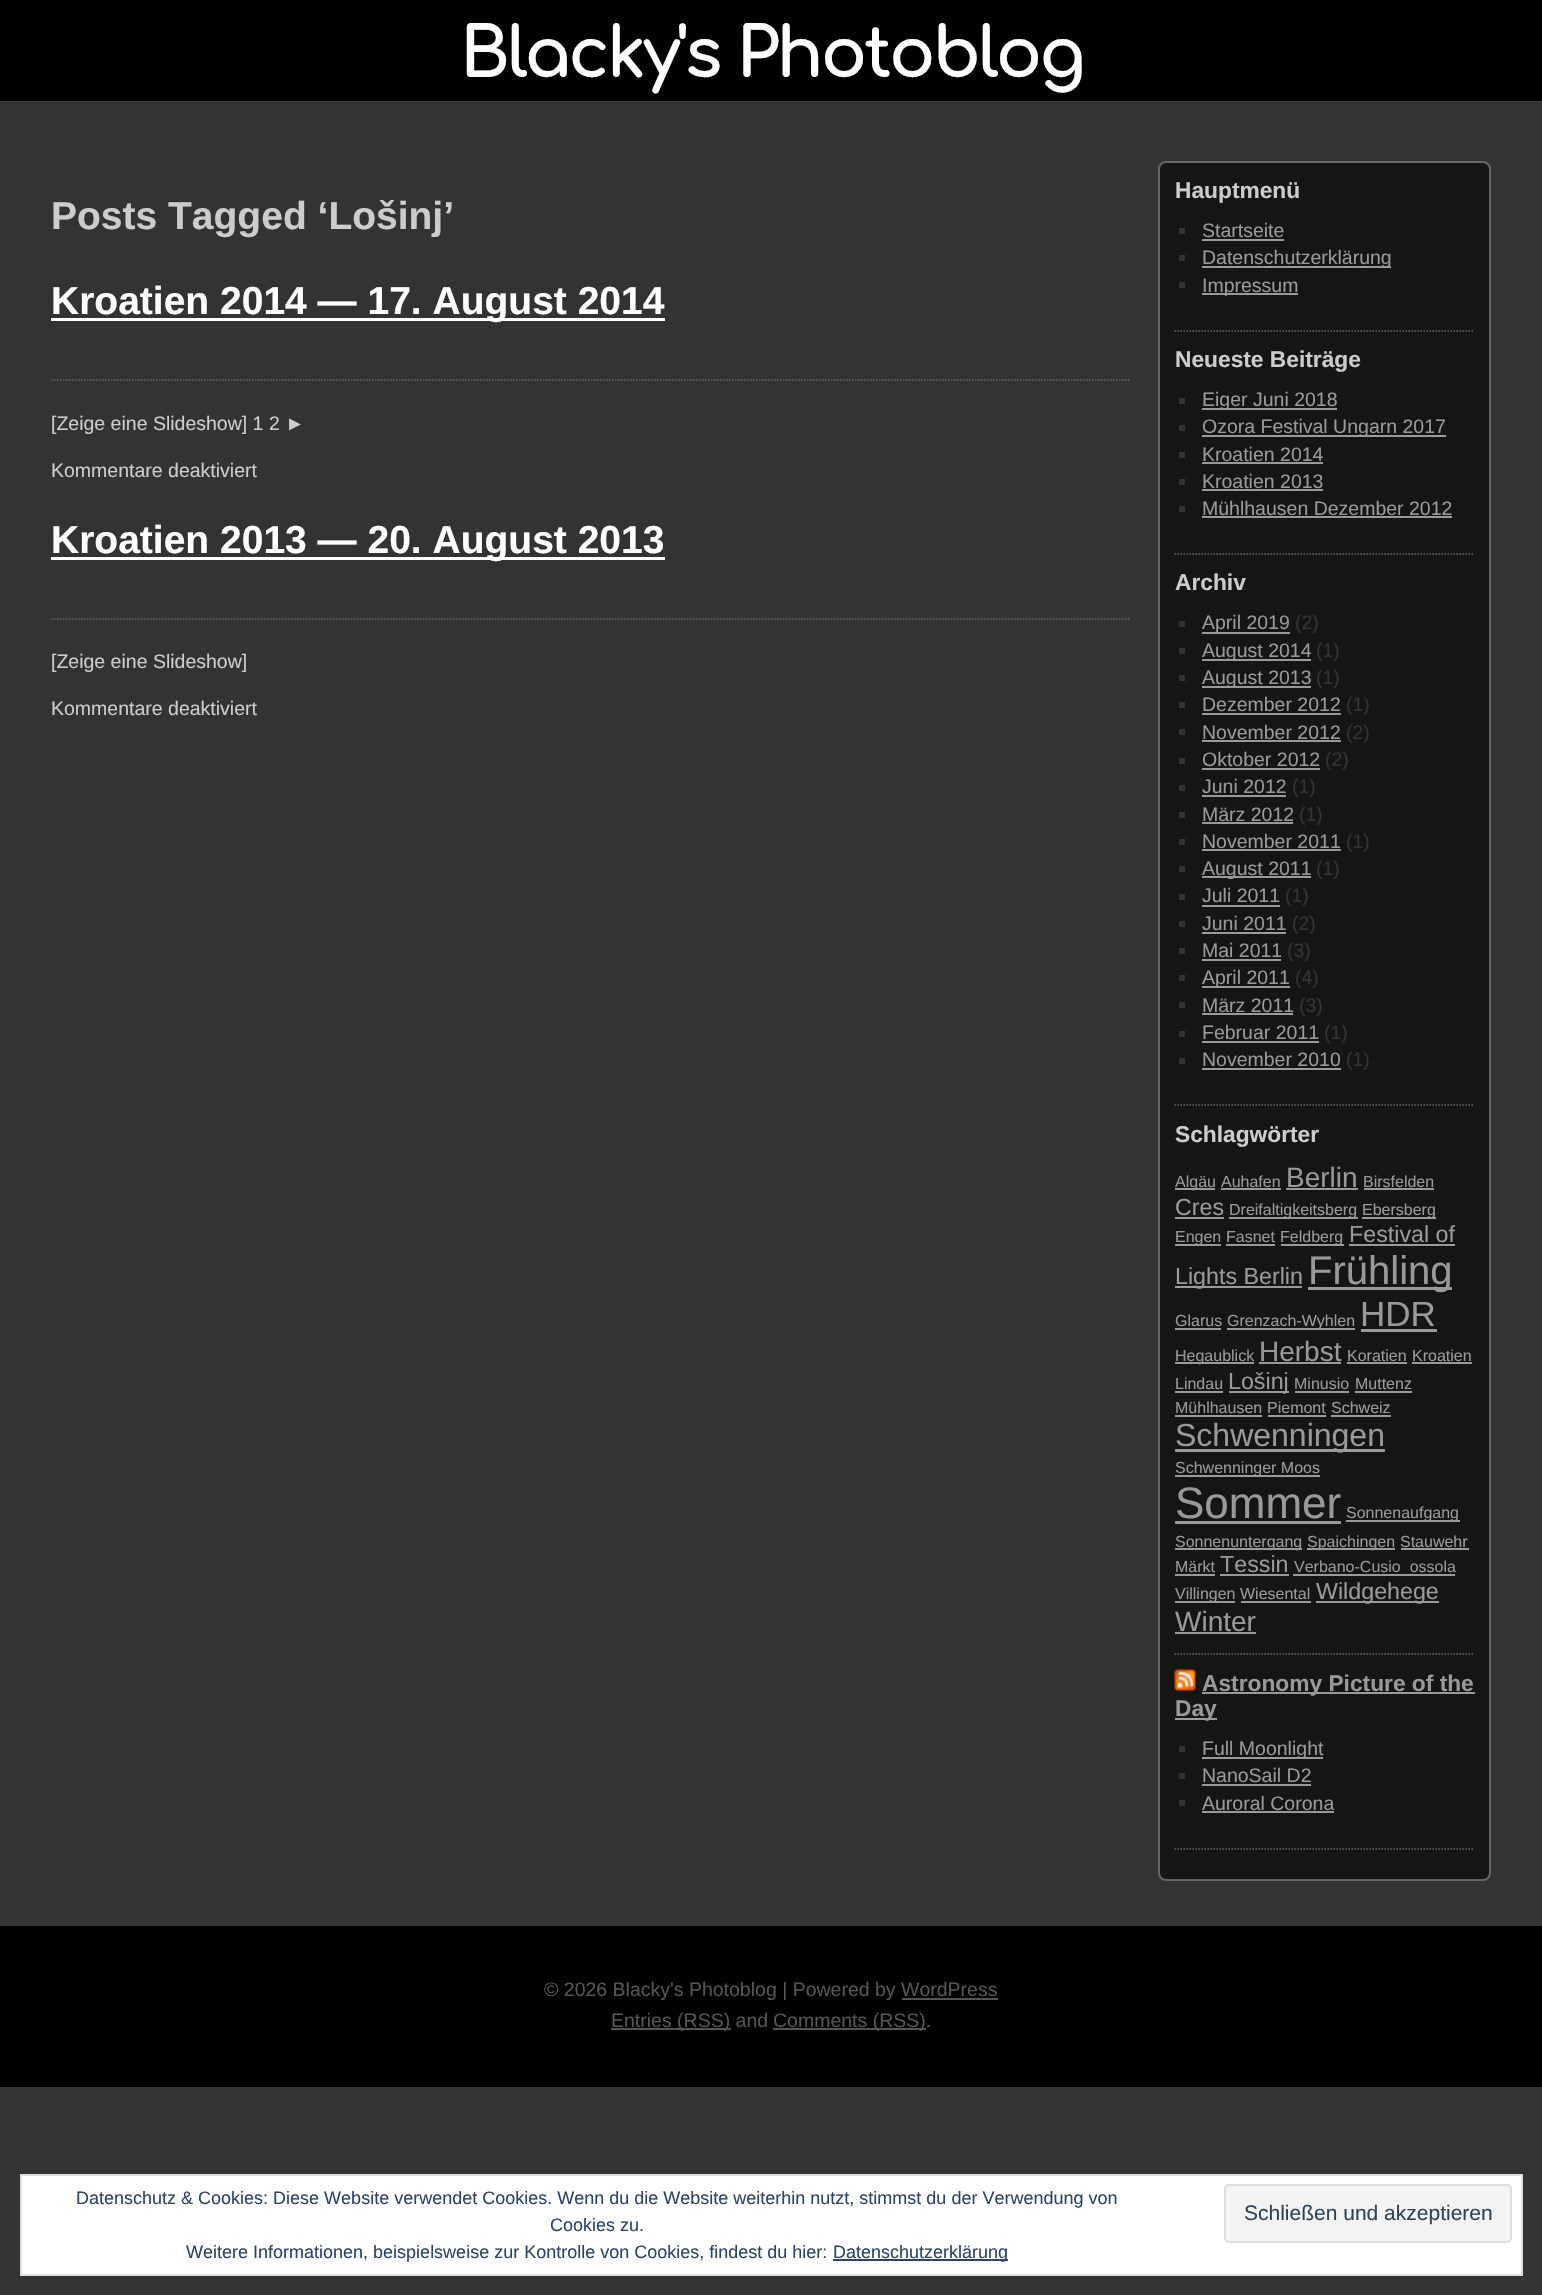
void draw(SkCanvas* canvas) {
	SkPaint fill;
	fill.setAntiAlias(true);
	auto makeFont = [&](const char* family, int weight, float size, bool italic = false) {
		SkFontStyle style(weight, SkFontStyle::kNormal_Width,
			italic ? SkFontStyle::kItalic_Slant : SkFontStyle::kUpright_Slant);
		SkFont result(fontMgr->matchFamilyStyle(family, style), size);
		result.setSubpixel(true);
		return result;
	};
	auto text = [&](const char* s, float x, float y, const SkFont& font) {
		canvas->drawString(s, x, y, font, fill);
	};
	auto spacedText = [&](const char* s, float x, float y, const SkFont& font, const SkPaint& ink, float letter, float word) {
		std::vector<SkGlyphID> glyphs(font.countText(s, strlen(s), SkTextEncoding::kUTF8));
		std::vector<float> xs(glyphs.size());
		font.textToGlyphs(s, strlen(s), SkTextEncoding::kUTF8, glyphs);
		font.getXPos(glyphs, xs, x);
		float extra = 0;
		for (size_t i = 0; i < glyphs.size(); i++) {
			xs[i] += extra;
			extra += letter + word * (glyphs[i] == font.unicharToGlyph(' '));
		}
		canvas->drawTextBlob(SkTextBlob::MakeFromPosHGlyphs(glyphs, xs, y, font), 0, 0, ink);
	};
	auto box = [&](float l, float t, float r, float b) {
		canvas->drawRect(SkRect::MakeLTRB(l, t, r, b), fill);
	};
	auto picture = [&](const char* path, float l, float t, float r, float b) {
		auto image = SkImages::DeferredFromEncodedData(SkData::MakeFromFileName(path));
		canvas->drawImageRect(image, SkRect::MakeLTRB(l, t, r, b), SkSamplingOptions());
	};
	canvas->clear(0xFF333333);
	fill.setColor(0xFF000000);
	box(0, 0, 1542, 101);
	fill.setStyle(SkPaint::kStroke_Style);
	fill.setStrokeWidth(1.5f);
	fill.setColor(0xFF666666);
	fill.setPathEffect(SkDashPathEffect::Make({{1.5f, 1.5f}}, 0));
	canvas->drawPath(SkPathBuilder().moveTo(51, 380).lineTo(1131, 380).detach(), fill);
	fill.setPathEffect(nullptr);
	fill.setStyle(SkPaint::kFill_Style);
	fill.setColor(0xFFFFFFFF);
	box(51, 318, 665, 321);
	fill.setStyle(SkPaint::kStroke_Style);
	fill.setColor(0xFF666666);
	fill.setPathEffect(SkDashPathEffect::Make({{1.5f, 1.5f}}, 0));
	canvas->drawPath(SkPathBuilder().moveTo(51, 619).lineTo(1131, 619).detach(), fill);
	fill.setPathEffect(nullptr);
	fill.setStyle(SkPaint::kFill_Style);
	fill.setColor(0xFFFFFFFF);
	box(51, 557, 665, 560);
	fill.setColor(0xFF151515);
	canvas->drawRoundRect(SkRect::MakeLTRB(1159, 162, 1490, 1880), 7, 7, fill);
	fill.setStyle(SkPaint::kStroke_Style);
	fill.setStrokeWidth(2);
	fill.setColor(0xFF666666);
	canvas->drawRoundRect(SkRect::MakeLTRB(1159, 162, 1490, 1880), 7, 7, fill);
	fill.setStrokeWidth(1.5f);
	fill.setPathEffect(SkDashPathEffect::Make({{1.5f, 1.5f}}, 0));
	canvas->drawPath(SkPathBuilder().moveTo(1174.5f, 331).lineTo(1474.5f, 331).detach(), fill);
	fill.setPathEffect(nullptr);
	fill.setStyle(SkPaint::kFill_Style);
	fill.setColor(0xFF333333);
	box(1179, 228, 1185, 234);
	fill.setColor(0xFF999999);
	box(1202, 239, 1284, 241);
	fill.setColor(0xFF333333);
	box(1179, 255, 1185, 261);
	fill.setColor(0xFF999999);
	box(1202, 266, 1391, 268);
	fill.setColor(0xFF333333);
	box(1179, 282, 1185, 288);
	fill.setColor(0xFF999999);
	box(1202, 293, 1298, 295);
	fill.setStyle(SkPaint::kStroke_Style);
	fill.setColor(0xFF666666);
	fill.setPathEffect(SkDashPathEffect::Make({{1.5f, 1.5f}}, 0));
	canvas->drawPath(SkPathBuilder().moveTo(1174.5f, 554).lineTo(1474.5f, 554).detach(), fill);
	fill.setPathEffect(nullptr);
	fill.setStyle(SkPaint::kFill_Style);
	fill.setColor(0xFF333333);
	box(1179, 398, 1185, 404);
	fill.setColor(0xFF999999);
	box(1202, 408, 1337, 410);
	fill.setColor(0xFF333333);
	box(1179, 425, 1185, 431);
	fill.setColor(0xFF999999);
	box(1202, 435, 1446, 437);
	fill.setColor(0xFF333333);
	box(1179, 452, 1185, 458);
	fill.setColor(0xFF999999);
	box(1202, 462, 1323, 464);
	fill.setColor(0xFF333333);
	box(1179, 479, 1185, 485);
	fill.setColor(0xFF999999);
	box(1202, 489, 1323, 491);
	fill.setColor(0xFF333333);
	box(1179, 506, 1185, 512);
	fill.setColor(0xFF999999);
	box(1202, 516, 1452, 518);
	fill.setStyle(SkPaint::kStroke_Style);
	fill.setColor(0xFF666666);
	fill.setPathEffect(SkDashPathEffect::Make({{1.5f, 1.5f}}, 0));
	canvas->drawPath(SkPathBuilder().moveTo(1174.5f, 1105).lineTo(1474.5f, 1105).detach(), fill);
	fill.setPathEffect(nullptr);
	fill.setStyle(SkPaint::kFill_Style);
	fill.setColor(0xFF333333);
	box(1179, 621, 1185, 627);
	fill.setColor(0xFF999999);
	box(1202, 632, 1290, 634);
	fill.setColor(0xFF333333);
	box(1179, 648, 1185, 654);
	fill.setColor(0xFF999999);
	box(1202, 659, 1311, 661);
	fill.setColor(0xFF333333);
	box(1179, 675, 1185, 681);
	fill.setColor(0xFF999999);
	box(1202, 686, 1311, 688);
	fill.setColor(0xFF333333);
	box(1179, 702, 1185, 708);
	fill.setColor(0xFF999999);
	box(1202, 713, 1341, 715);
	fill.setColor(0xFF333333);
	box(1179, 729, 1185, 735);
	fill.setColor(0xFF999999);
	box(1202, 740, 1341, 742);
	fill.setColor(0xFF333333);
	box(1179, 758, 1185, 764);
	fill.setColor(0xFF999999);
	box(1202, 768, 1320, 770);
	fill.setColor(0xFF333333);
	box(1179, 785, 1185, 791);
	fill.setColor(0xFF999999);
	box(1202, 795, 1286, 797);
	fill.setColor(0xFF333333);
	box(1179, 812, 1185, 818);
	fill.setColor(0xFF999999);
	box(1202, 822, 1293, 824);
	fill.setColor(0xFF333333);
	box(1179, 839, 1185, 845);
	fill.setColor(0xFF999999);
	box(1202, 849, 1341, 851);
	fill.setColor(0xFF333333);
	box(1179, 866, 1185, 872);
	fill.setColor(0xFF999999);
	box(1202, 876, 1311, 878);
	fill.setColor(0xFF333333);
	box(1179, 894, 1185, 900);
	fill.setColor(0xFF999999);
	box(1202, 905, 1280, 907);
	fill.setColor(0xFF333333);
	box(1179, 921, 1185, 927);
	fill.setColor(0xFF999999);
	box(1202, 932, 1286, 934);
	fill.setColor(0xFF333333);
	box(1179, 948, 1185, 954);
	fill.setColor(0xFF999999);
	box(1202, 959, 1281, 961);
	fill.setColor(0xFF333333);
	box(1179, 975, 1185, 981);
	fill.setColor(0xFF999999);
	box(1202, 986, 1290, 988);
	fill.setColor(0xFF333333);
	box(1179, 1002, 1185, 1008);
	fill.setColor(0xFF999999);
	box(1202, 1013, 1293, 1015);
	fill.setColor(0xFF333333);
	box(1179, 1031, 1185, 1037);
	fill.setColor(0xFF999999);
	box(1202, 1041, 1319, 1043);
	fill.setColor(0xFF333333);
	box(1179, 1058, 1185, 1064);
	fill.setColor(0xFF999999);
	box(1202, 1068, 1341, 1070);
	fill.setStyle(SkPaint::kStroke_Style);
	fill.setColor(0xFF666666);
	fill.setPathEffect(SkDashPathEffect::Make({{1.5f, 1.5f}}, 0));
	canvas->drawPath(SkPathBuilder().moveTo(1174.5f, 1654).lineTo(1474.5f, 1654).detach(), fill);
	fill.setPathEffect(nullptr);
	fill.setStyle(SkPaint::kFill_Style);
	fill.setColor(0xFF999999);
	box(1175, 1188, 1215, 1190);
	box(1221, 1188, 1281, 1190);
	box(1286, 1188, 1358, 1190);
	box(1364, 1188, 1434, 1190);
	box(1175, 1217, 1224, 1219);
	box(1229, 1217, 1358, 1219);
	box(1362, 1217, 1436, 1219);
	box(1175, 1244, 1221, 1246);
	box(1226, 1244, 1275, 1246);
	box(1281, 1244, 1344, 1246);
	box(1349, 1244, 1455, 1246);
	box(1175, 1286, 1302, 1288);
	box(1308, 1287, 1452, 1290);
	box(1175, 1328, 1221, 1330);
	box(1227, 1328, 1355, 1330);
	box(1361, 1329, 1437, 1332);
	box(1175, 1362, 1254, 1364);
	box(1259, 1362, 1341, 1364);
	box(1347, 1362, 1407, 1364);
	box(1412, 1362, 1472, 1364);
	box(1175, 1391, 1223, 1393);
	box(1229, 1391, 1289, 1393);
	box(1295, 1391, 1349, 1393);
	box(1355, 1391, 1412, 1393);
	box(1175, 1415, 1262, 1417);
	box(1268, 1415, 1326, 1417);
	box(1331, 1415, 1391, 1417);
	box(1175, 1449, 1385, 1452);
	box(1175, 1475, 1320, 1477);
	box(1175, 1521, 1341, 1524);
	box(1346, 1520, 1460, 1522);
	box(1175, 1548, 1302, 1550);
	box(1307, 1548, 1395, 1550);
	box(1401, 1548, 1469, 1550);
	box(1175, 1574, 1215, 1576);
	box(1220, 1574, 1289, 1576);
	box(1293, 1574, 1455, 1576);
	box(1175, 1601, 1235, 1603);
	box(1241, 1601, 1311, 1603);
	box(1316, 1601, 1439, 1603);
	box(1175, 1632, 1256, 1634);
	fill.setStyle(SkPaint::kStroke_Style);
	fill.setColor(0xFF666666);
	fill.setPathEffect(SkDashPathEffect::Make({{1.5f, 1.5f}}, 0));
	canvas->drawPath(SkPathBuilder().moveTo(1174.5f, 1849).lineTo(1474.5f, 1849).detach(), fill);
	fill.setPathEffect(nullptr);
	picture("image0.png", 1174, 1669, 1196, 1691);
	fill.setStyle(SkPaint::kFill_Style);
	fill.setColor(0xFF999999);
	box(1202, 1692, 1475, 1694);
	box(1175, 1718, 1217, 1720);
	fill.setColor(0xFF333333);
	box(1179, 1746, 1185, 1752);
	fill.setColor(0xFF999999);
	box(1202, 1757, 1323, 1759);
	fill.setColor(0xFF333333);
	box(1179, 1773, 1185, 1779);
	fill.setColor(0xFF999999);
	box(1202, 1784, 1311, 1786);
	fill.setColor(0xFF333333);
	box(1179, 1800, 1185, 1806);
	fill.setColor(0xFF999999);
	box(1202, 1811, 1334, 1813);
	fill.setColor(0xFF000000);
	box(0, 1926, 1542, 2087);
	fill.setColor(0xFF555555);
	box(902, 1998, 998, 2000);
	box(611, 2028, 731, 2030);
	box(773, 2028, 926, 2030);
	fill.setColor(0xFFFFFFFF);
	canvas->drawRect(SkRect::MakeLTRB(21, 2175, 1522, 2275), fill);
	fill.setStyle(SkPaint::kStroke_Style);
	fill.setStrokeWidth(2);
	fill.setColor(0xFFDEDEDE);
	canvas->drawRect(SkRect::MakeLTRB(21, 2175, 1522, 2275), fill);
	fill.setStyle(SkPaint::kFill_Style);
	fill.setColor(0xFFF3F3F3);
	canvas->drawRoundRect(SkRect::MakeLTRB(1225, 2185, 1511, 2242), 4, 4, fill);
	fill.setStyle(SkPaint::kStroke_Style);
	fill.setColor(0xFFDEDEDE);
	canvas->drawRoundRect(SkRect::MakeLTRB(1225, 2185, 1511, 2242), 4, 4, fill);
	fill.setStyle(SkPaint::kFill_Style);
	fill.setColor(0xFF2E4467);
	box(833, 2259, 1008, 2261);
	auto font1 = makeFont("Comfortaa", 700, 69);
	fill.setColor(0xFFFFFFFF);
	spacedText("Blacky's Photoblog", 460, 77, font1, fill, -3, 0);
	auto font2 = makeFont("Liberation Sans", 700, 39);
	fill.setColor(0xFFCCCCCC);
	text("Posts Tagged ‘Lošinj’", 51, 229, font2);
	fill.setColor(0xFFFFFFFF);
	text("Kroatien 2014 — 17. August 2014", 51, 314, font2);
	auto font3 = makeFont("Liberation Sans", 400, 19.5f);
	fill.setColor(0xFFCCCCCC);
	text("[Zeige eine Slideshow] 1 2 ►", 51, 430, font3);
	text("Kommentare deaktiviert", 51, 477, font3);
	fill.setColor(0xFFFFFFFF);
	text("Kroatien 2013 — 20. August 2013", 51, 553, font2);
	fill.setColor(0xFFCCCCCC);
	text("[Zeige eine Slideshow]", 51, 668, font3);
	text("Kommentare deaktiviert", 51, 715, font3);
	auto font4 = makeFont("Liberation Sans", 700, 22.75f);
	text("Hauptmenü", 1175, 198, font4);
	fill.setColor(0xFF999999);
	text("Startseite", 1202, 237, font3);
	text("Datenschutzerklärung", 1202, 264, font3);
	text("Impressum", 1202, 292, font3);
	fill.setColor(0xFFCCCCCC);
	text("Neueste Beiträge", 1175, 367, font4);
	fill.setColor(0xFF999999);
	text("Eiger Juni 2018", 1202, 406, font3);
	text("Ozora Festival Ungarn 2017", 1202, 433, font3);
	text("Kroatien 2014", 1202, 461, font3);
	text("Kroatien 2013", 1202, 488, font3);
	text("Mühlhausen Dezember 2012", 1202, 515, font3);
	fill.setColor(0xFFCCCCCC);
	text("Archiv", 1175, 590, font4);
	fill.setColor(0xFF999999);
	text("April 2019", 1202, 629, font3);
	fill.setColor(0xFF333333);
	text("(2)", 1295, 629, font3);
	fill.setColor(0xFF999999);
	text("August 2014", 1202, 657, font3);
	fill.setColor(0xFF333333);
	text("(1)", 1316, 657, font3);
	fill.setColor(0xFF999999);
	text("August 2013", 1202, 684, font3);
	fill.setColor(0xFF333333);
	text("(1)", 1316, 684, font3);
	fill.setColor(0xFF999999);
	text("Dezember 2012", 1202, 711, font3);
	fill.setColor(0xFF333333);
	text("(1)", 1346, 711, font3);
	fill.setColor(0xFF999999);
	text("November 2012", 1202, 739, font3);
	fill.setColor(0xFF333333);
	text("(2)", 1346, 739, font3);
	fill.setColor(0xFF999999);
	text("Oktober 2012", 1202, 766, font3);
	fill.setColor(0xFF333333);
	text("(2)", 1325, 766, font3);
	fill.setColor(0xFF999999);
	text("Juni 2012", 1202, 793, font3);
	fill.setColor(0xFF333333);
	text("(1)", 1292, 793, font3);
	fill.setColor(0xFF999999);
	text("März 2012", 1202, 821, font3);
	fill.setColor(0xFF333333);
	text("(1)", 1299, 821, font3);
	fill.setColor(0xFF999999);
	text("November 2011", 1202, 848, font3);
	fill.setColor(0xFF333333);
	text("(1)", 1346, 848, font3);
	fill.setColor(0xFF999999);
	text("August 2011", 1202, 875, font3);
	fill.setColor(0xFF333333);
	text("(1)", 1316, 875, font3);
	fill.setColor(0xFF999999);
	text("Juli 2011", 1202, 902, font3);
	fill.setColor(0xFF333333);
	text("(1)", 1285, 902, font3);
	fill.setColor(0xFF999999);
	text("Juni 2011", 1202, 930, font3);
	fill.setColor(0xFF333333);
	text("(2)", 1292, 930, font3);
	fill.setColor(0xFF999999);
	text("Mai 2011", 1202, 957, font3);
	fill.setColor(0xFF333333);
	text("(3)", 1287, 957, font3);
	fill.setColor(0xFF999999);
	text("April 2011", 1202, 984, font3);
	fill.setColor(0xFF333333);
	text("(4)", 1295, 984, font3);
	fill.setColor(0xFF999999);
	text("März 2011", 1202, 1012, font3);
	fill.setColor(0xFF333333);
	text("(3)", 1299, 1012, font3);
	fill.setColor(0xFF999999);
	text("Februar 2011", 1202, 1039, font3);
	fill.setColor(0xFF333333);
	text("(1)", 1324, 1039, font3);
	fill.setColor(0xFF999999);
	text("November 2010", 1202, 1066, font3);
	fill.setColor(0xFF333333);
	text("(1)", 1346, 1066, font3);
	fill.setColor(0xFFCCCCCC);
	text("Schlagwörter", 1175, 1142, font4);
	auto font5 = makeFont("Liberation Sans", 400, 16);
	fill.setColor(0xFF999999);
	text("Algäu", 1175, 1187, font5);
	text("Auhafen", 1221, 1187, font5);
	auto font6 = makeFont("Liberation Sans", 400, 28);
	text("Berlin", 1286, 1187, font6);
	text("Birsfelden", 1363, 1187, font5);
	auto font7 = makeFont("Liberation Sans", 400, 23.25f);
	text("Cres", 1175, 1215, font7);
	text("Dreifaltigkeitsberg", 1229, 1215, font5);
	text("Ebersberg", 1362, 1215, font5);
	text("Engen", 1175, 1242, font5);
	text("Fasnet", 1226, 1242, font5);
	text("Feldberg", 1280, 1242, font5);
	text("Festival of", 1349, 1242, font7);
	text("Lights Berlin", 1175, 1284, font7);
	auto font8 = makeFont("Liberation Sans", 400, 40);
	text("Frühling", 1308, 1284, font8);
	text("Glarus", 1175, 1326, font5);
	text("Grenzach-Wyhlen", 1227, 1326, font5);
	auto font9 = makeFont("Liberation Sans", 400, 35);
	text("HDR", 1360, 1326, font9);
	text("Hegaublick", 1175, 1361, font5);
	text("Herbst", 1259, 1361, font6);
	text("Koratien", 1347, 1361, font5);
	text("Kroatien", 1412, 1361, font5);
	text("Lindau", 1175, 1389, font5);
	text("Lošinj", 1228, 1389, font7);
	text("Minusio", 1294, 1389, font5);
	text("Muttenz", 1355, 1389, font5);
	text("Mühlhausen", 1175, 1413, font5);
	text("Piemont", 1267, 1413, font5);
	text("Schweiz", 1331, 1413, font5);
	auto font10 = makeFont("Liberation Sans", 400, 32);
	text("Schwenningen", 1175, 1446, font10);
	text("Schwenninger Moos", 1175, 1473, font5);
	auto font11 = makeFont("Liberation Sans", 400, 44);
	text("Sommer", 1175, 1518, font11);
	text("Sonnenaufgang", 1346, 1518, font5);
	text("Sonnenuntergang", 1175, 1547, font5);
	text("Spaichingen", 1307, 1547, font5);
	text("Stauwehr", 1400, 1547, font5);
	text("Märkt", 1175, 1572, font5);
	text("Tessin", 1220, 1572, font7);
	text("Verbano-Cusio_ossola", 1294, 1572, font5);
	text("Villingen", 1175, 1599, font5);
	text("Wiesental", 1240, 1599, font5);
	text("Wildgehege", 1316, 1599, font7);
	text("Winter", 1175, 1631, font6);
	text("Astronomy Picture of the", 1202, 1691, font4);
	text("Day", 1175, 1716, font4);
	text("Full Moonlight", 1202, 1755, font3);
	text("NanoSail D2", 1202, 1782, font3);
	text("Auroral Corona", 1202, 1810, font3);
	fill.setColor(0xFF555555);
	text("© 2026 Blacky's Photoblog | Powered by WordPress", 544, 1996, font3);
	text("Entries (RSS) and", 611, 2027, font3);
	text("Comments (RSS).", 773, 2027, font3);
	auto font12 = makeFont("Liberation Sans", 400, 18);
	fill.setColor(0xFF2E4467);
	text("Datenschutz & Cookies: Diese Website verwendet Cookies. Wenn du die Website weiterhin nutzt, stimmst du der Verwendung von", 76, 2204, font12);
	text("Cookies zu.", 550, 2231, font12);
	auto font13 = makeFont("Liberation Sans", 400, 21);
	fill.setColor(0xFF2E4453);
	text("Schließen und akzeptieren", 1244, 2220, font13);
	fill.setColor(0xFF2E4467);
	text("Weitere Informationen, beispielsweise zur Kontrolle von Cookies, findest du hier:", 186, 2258, font12);
	text("Datenschutzerklärung", 833, 2258, font12);
}
